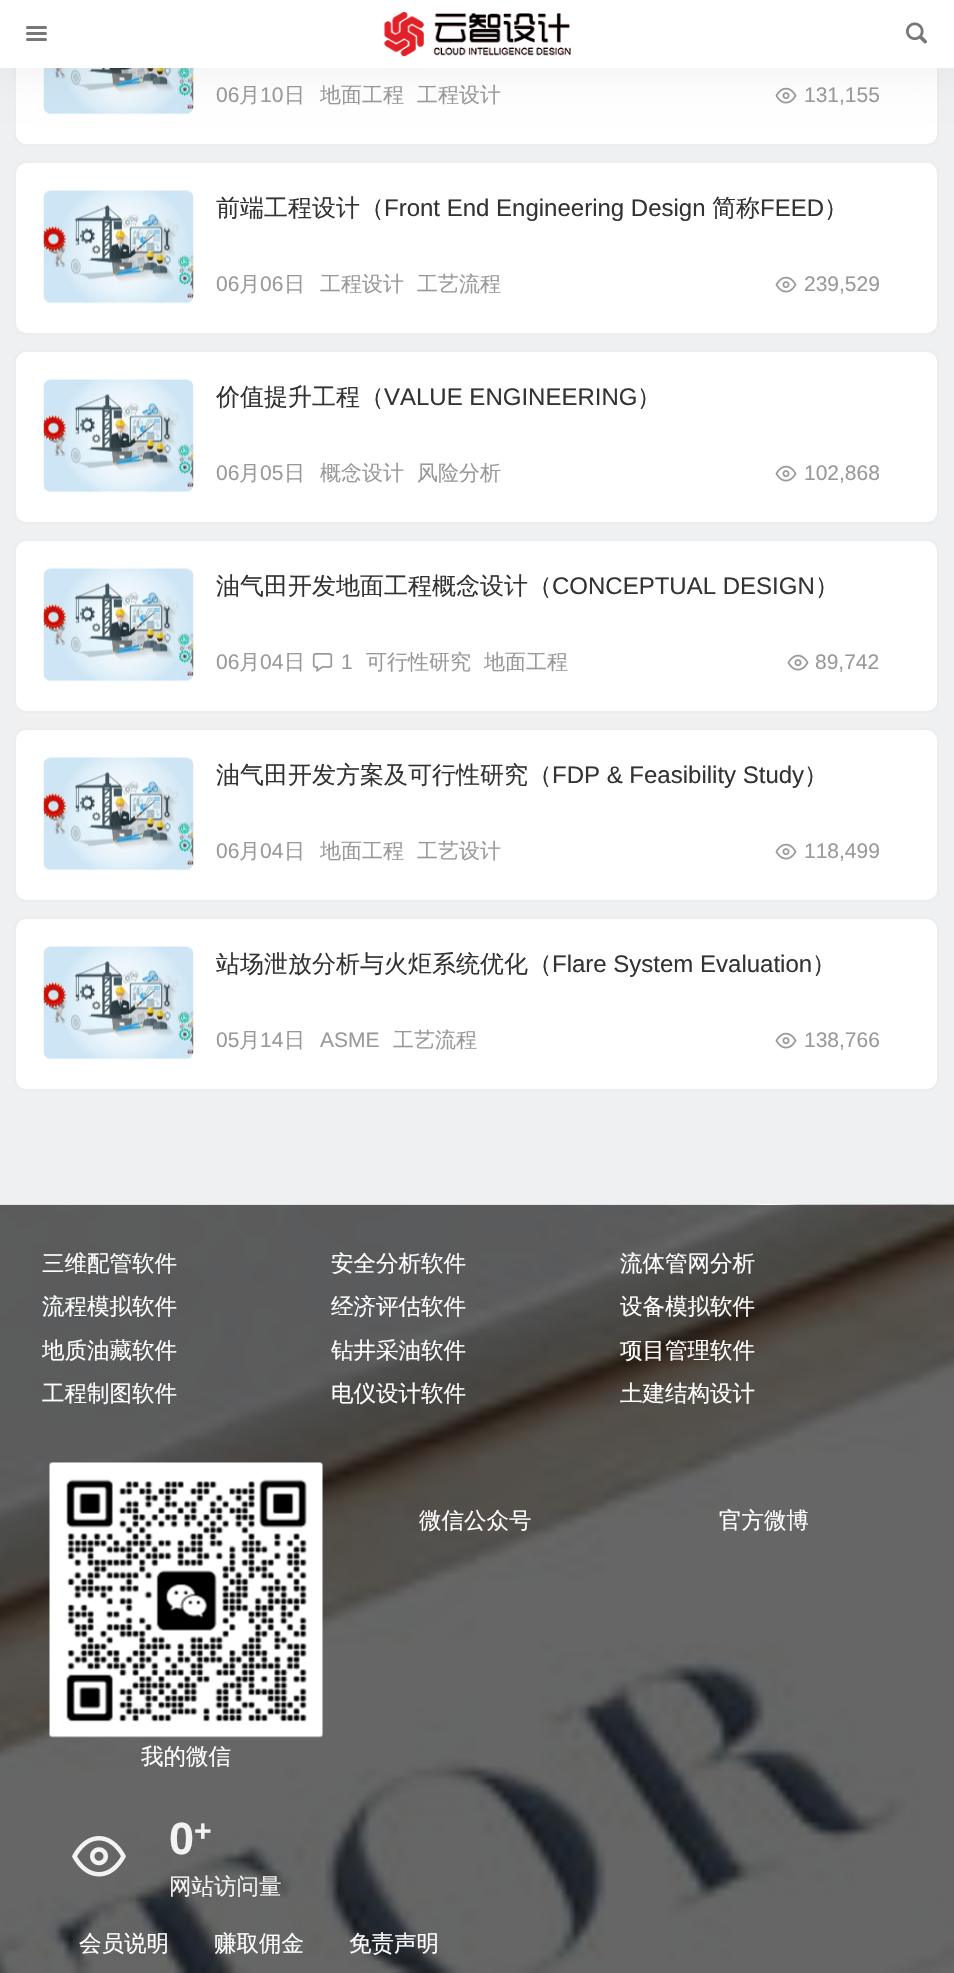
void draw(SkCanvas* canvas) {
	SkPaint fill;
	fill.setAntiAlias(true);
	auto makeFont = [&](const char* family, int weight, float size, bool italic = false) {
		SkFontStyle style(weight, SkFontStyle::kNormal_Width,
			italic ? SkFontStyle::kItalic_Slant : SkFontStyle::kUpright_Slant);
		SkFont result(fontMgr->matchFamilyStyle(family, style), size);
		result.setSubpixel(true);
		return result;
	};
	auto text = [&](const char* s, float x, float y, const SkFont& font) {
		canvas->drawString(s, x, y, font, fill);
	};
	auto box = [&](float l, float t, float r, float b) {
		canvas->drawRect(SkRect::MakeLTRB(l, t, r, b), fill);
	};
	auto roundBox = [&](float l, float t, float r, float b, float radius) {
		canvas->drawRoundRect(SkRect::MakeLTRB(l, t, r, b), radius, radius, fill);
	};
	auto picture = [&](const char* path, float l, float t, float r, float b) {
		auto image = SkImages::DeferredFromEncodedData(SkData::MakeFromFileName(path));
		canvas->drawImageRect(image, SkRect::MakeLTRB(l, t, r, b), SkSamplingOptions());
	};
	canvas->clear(0xFFEFF0F2);
	fill.setColor(0xFFFFFFFF);
	roundBox(14, -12, 939, 146, 12);
	fill.setStyle(SkPaint::kStroke_Style);
	fill.setStrokeWidth(2);
	fill.setColor(0x12000000);
	canvas->drawRoundRect(SkRect::MakeLTRB(15, -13, 938, 145), 11, 11, fill);
	picture("image2.png", 43, 68, 194, 115);
	picture("image3.png", 775, 87, 797, 104);
	fill.setStyle(SkPaint::kFill_Style);
	fill.setColor(0x0F000000);
	fill.setMaskFilter(SkMaskFilter::MakeBlur(kNormal_SkBlurStyle, 22.5f));
	canvas->drawRect(SkRect::MakeLTRB(0, 5, 954, 72), fill);
	fill.setMaskFilter(nullptr);
	fill.setColor(0xFFFFFFFF);
	box(0, 0, 954, 68);
	fill.setColor(0xFF777777);
	roundBox(26, 32, 47, 35, 1.5f);
	roundBox(26, 26, 47, 29, 1.5f);
	roundBox(26, 38, 47, 41, 1.5f);
	picture("image0.png", 384, 12, 571, 57);
	picture("image1.png", 906, 22, 927, 44);
	fill.setColor(0xFFFFFFFF);
	roundBox(14, 161, 939, 335, 12);
	fill.setStyle(SkPaint::kStroke_Style);
	fill.setColor(0x12000000);
	canvas->drawRoundRect(SkRect::MakeLTRB(15, 162, 938, 334), 11, 11, fill);
	picture("image4.png", 43, 190, 194, 304);
	picture("image3.png", 775, 276, 797, 293);
	fill.setStyle(SkPaint::kFill_Style);
	fill.setColor(0xFFFFFFFF);
	roundBox(14, 350, 939, 524, 12);
	fill.setStyle(SkPaint::kStroke_Style);
	fill.setColor(0x12000000);
	canvas->drawRoundRect(SkRect::MakeLTRB(15, 351, 938, 523), 11, 11, fill);
	picture("image5.png", 43, 379, 194, 493);
	picture("image3.png", 775, 465, 797, 482);
	fill.setStyle(SkPaint::kFill_Style);
	fill.setColor(0xFFFFFFFF);
	roundBox(14, 539, 939, 713, 12);
	fill.setStyle(SkPaint::kStroke_Style);
	fill.setColor(0x12000000);
	canvas->drawRoundRect(SkRect::MakeLTRB(15, 540, 938, 712), 11, 11, fill);
	picture("image4.png", 43, 568, 194, 682);
	picture("image6.png", 312, 653, 333, 672);
	picture("image3.png", 787, 654, 809, 671);
	fill.setStyle(SkPaint::kFill_Style);
	fill.setColor(0xFFFFFFFF);
	roundBox(14, 728, 939, 902, 12);
	fill.setStyle(SkPaint::kStroke_Style);
	fill.setColor(0x12000000);
	canvas->drawRoundRect(SkRect::MakeLTRB(15, 729, 938, 901), 11, 11, fill);
	picture("image5.png", 43, 757, 194, 871);
	picture("image3.png", 775, 843, 797, 860);
	fill.setStyle(SkPaint::kFill_Style);
	fill.setColor(0xFFFFFFFF);
	roundBox(14, 917, 939, 1091, 12);
	fill.setStyle(SkPaint::kStroke_Style);
	fill.setColor(0x12000000);
	canvas->drawRoundRect(SkRect::MakeLTRB(15, 918, 938, 1090), 11, 11, fill);
	picture("image4.png", 43, 946, 194, 1060);
	picture("image3.png", 775, 1032, 797, 1049);
	picture("image7.png", 0, 1204, 954, 1973);
	picture("image8.png", 49, 1462, 323, 1738);
	picture("image9.png", 72, 1836, 126, 1877);
	auto font1 = makeFont("Liberation Sans", 400, 21);
	fill.setStyle(SkPaint::kFill_Style);
	fill.setColor(0xFF999999);
	text("06", 216, 102, font1);
	auto font2 = makeFont("WenQuanYi Zen Hei", 500, 21);
	text("月", 239, 102, font2);
	text("10", 260, 102, font1);
	text("日", 284, 102, font2);
	text("地面工程", 320, 102, font2);
	text("工程设计", 417, 102, font2);
	text("131,155", 804, 102, font1);
	auto font3 = makeFont("WenQuanYi Zen Hei", 500, 24);
	fill.setColor(0xFF333333);
	text("前端工程设计（", 216, 216, font3);
	auto font4 = makeFont("Liberation Sans", 400, 24);
	text("Front End Engineering Design", 384, 216, font4);
	text("简称", 712, 216, font3);
	text("FEED", 760, 216, font4);
	text("）", 824, 216, font3);
	fill.setColor(0xFF999999);
	text("06", 216, 291, font1);
	text("月", 239, 291, font2);
	text("06", 260, 291, font1);
	text("日", 284, 291, font2);
	text("工程设计", 320, 291, font2);
	text("工艺流程", 417, 291, font2);
	text("239,529", 804, 291, font1);
	fill.setColor(0xFF333333);
	text("价值提升工程（", 216, 405, font3);
	text("VALUE ENGINEERING", 384, 405, font4);
	text("）", 637, 405, font3);
	fill.setColor(0xFF999999);
	text("06", 216, 480, font1);
	text("月", 239, 480, font2);
	text("05", 260, 480, font1);
	text("日", 284, 480, font2);
	text("概念设计", 320, 480, font2);
	text("风险分析", 417, 480, font2);
	text("102,868", 804, 480, font1);
	fill.setColor(0xFF333333);
	text("油气田开发地面工程概念设计（", 216, 594, font3);
	text("CONCEPTUAL DESIGN", 552, 594, font4);
	text("）", 815, 594, font3);
	fill.setColor(0xFF999999);
	text("06", 216, 669, font1);
	text("月", 239, 669, font2);
	text("04", 260, 669, font1);
	text("日", 284, 669, font2);
	text("1", 341, 669, font1);
	text("可行性研究", 366, 669, font2);
	text("地面工程", 484, 669, font2);
	text("89,742", 815, 669, font1);
	fill.setColor(0xFF333333);
	text("油气田开发方案及可行性研究（", 216, 783, font3);
	text("FDP & Feasibility Study", 552, 783, font4);
	text("）", 804, 783, font3);
	fill.setColor(0xFF999999);
	text("06", 216, 858, font1);
	text("月", 239, 858, font2);
	text("04", 260, 858, font1);
	text("日", 284, 858, font2);
	text("地面工程", 320, 858, font2);
	text("工艺设计", 417, 858, font2);
	text("118,499", 804, 858, font1);
	fill.setColor(0xFF333333);
	text("站场泄放分析与火炬系统优化（", 216, 972, font3);
	text("Flare System Evaluation", 552, 972, font4);
	text("）", 812, 972, font3);
	fill.setColor(0xFF999999);
	text("05", 216, 1047, font1);
	text("月", 239, 1047, font2);
	text("14", 260, 1047, font1);
	text("日", 284, 1047, font2);
	text("ASME", 320, 1047, font1);
	text("工艺流程", 393, 1047, font2);
	text("138,766", 804, 1047, font1);
	auto font5 = makeFont("WenQuanYi Zen Hei", 500, 22.5f);
	fill.setColor(0xFFFFFFFF);
	text("三维配管软件", 42, 1271, font5);
	text("安全分析软件", 331, 1271, font5);
	text("流体管网分析", 620, 1271, font5);
	text("流程模拟软件", 42, 1314, font5);
	text("经济评估软件", 331, 1314, font5);
	text("设备模拟软件", 620, 1314, font5);
	text("地质油藏软件", 42, 1358, font5);
	text("钻井采油软件", 331, 1358, font5);
	canvas->save();
	canvas->clipRect(SkRect::MakeLTRB(620, 1328, 909, 1371));
	text("项目管理软件", 620, 1358, font5);
	canvas->restore();
	text("工程制图软件", 42, 1401, font5);
	text("电仪设计软件", 331, 1401, font5);
	text("土建结构设计", 620, 1401, font5);
	text("微信公众号", 419, 1528, font5);
	text("官方微博", 719, 1528, font5);
	text("我的微信", 141, 1764, font5);
	auto font6 = makeFont("Liberation Sans", 700, 45);
	fill.setColor(0xFFF2F2F2);
	text("0", 169, 1854, font6);
	auto font7 = makeFont("Liberation Sans", 700, 30);
	text("+", 194, 1841, font7);
	text("网站访问量", 169, 1894, font5);
	fill.setColor(0xFFFFFFFF);
	text("会员说明", 79, 1951, font5);
	text("赚取佣金", 214, 1951, font5);
	text("免责声明", 349, 1951, font5);
}
